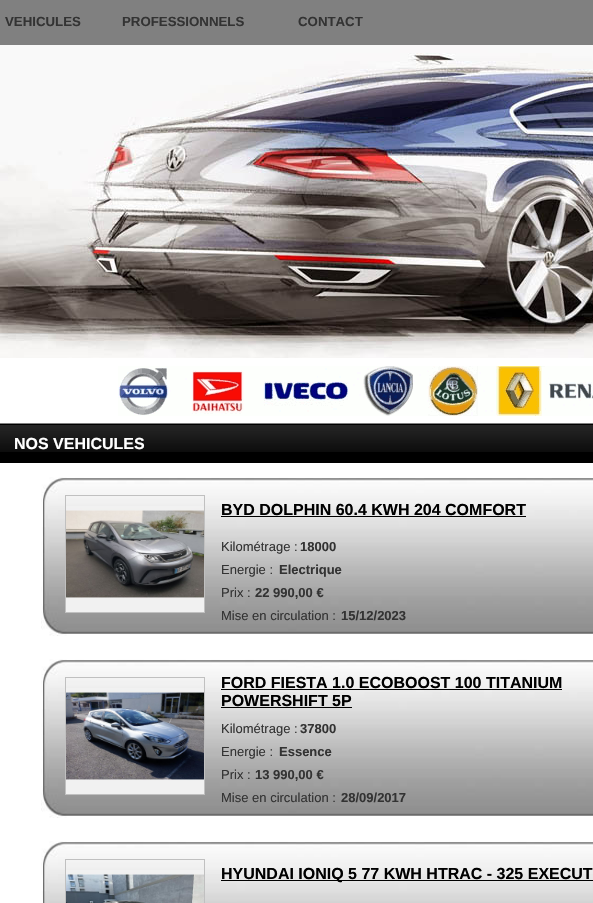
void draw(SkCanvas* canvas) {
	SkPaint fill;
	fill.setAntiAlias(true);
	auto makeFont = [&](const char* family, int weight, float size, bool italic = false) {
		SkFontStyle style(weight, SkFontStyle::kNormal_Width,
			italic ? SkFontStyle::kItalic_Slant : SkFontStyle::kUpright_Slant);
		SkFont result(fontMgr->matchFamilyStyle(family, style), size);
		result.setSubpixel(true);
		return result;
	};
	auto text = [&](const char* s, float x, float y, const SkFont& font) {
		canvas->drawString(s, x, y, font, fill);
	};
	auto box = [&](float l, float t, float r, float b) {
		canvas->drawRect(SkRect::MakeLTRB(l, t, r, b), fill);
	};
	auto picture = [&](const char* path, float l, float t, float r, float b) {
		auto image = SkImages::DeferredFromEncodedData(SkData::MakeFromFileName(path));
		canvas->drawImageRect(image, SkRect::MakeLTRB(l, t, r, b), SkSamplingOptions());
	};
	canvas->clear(0xFFFFFFFF);
	fill.setColor(0xFF808080);
	box(0, 0, 593, 45);
	picture("image0.png", 0, 45, 593, 358);
	box(0, 423, 593, 424);
	picture("image1.png", 118, 366, 593, 416);
	picture("image2.png", 0, 424, 593, 463);
	picture("image3.png", 41, 477, 593, 636);
	fill.setStyle(SkPaint::kStroke_Style);
	fill.setStrokeWidth(1);
	fill.setColor(0xFFC0C0C0);
	canvas->drawRect(SkRect::MakeLTRB(65.5f, 495.5f, 204.5f, 612.5f), fill);
	picture("image4.png", 66, 506, 204, 612);
	fill.setStyle(SkPaint::kFill_Style);
	fill.setColor(0xFF000000);
	box(221, 516, 526, 517);
	picture("image3.png", 41, 659, 593, 818);
	fill.setStyle(SkPaint::kStroke_Style);
	fill.setColor(0xFFC0C0C0);
	canvas->drawRect(SkRect::MakeLTRB(65.5f, 677.5f, 204.5f, 794.5f), fill);
	picture("image5.png", 66, 688, 204, 794);
	fill.setStyle(SkPaint::kFill_Style);
	fill.setColor(0xFF000000);
	box(221, 689, 562, 690);
	box(221, 707, 352, 708);
	picture("image6.png", 41, 841, 593, 903);
	fill.setStyle(SkPaint::kStroke_Style);
	fill.setColor(0xFFC0C0C0);
	canvas->drawRect(SkRect::MakeLTRB(65.5f, 859.5f, 204.5f, 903.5f), fill);
	picture("image7.png", 66, 870, 204, 903);
	fill.setStyle(SkPaint::kFill_Style);
	fill.setColor(0xFF000000);
	box(221, 880, 593, 881);
	auto font1 = makeFont("Liberation Sans", 700, 13.25f);
	fill.setColor(0xFF333333);
	text("VEHICULES", 5, 26, font1);
	text("PROFESSIONNELS", 122, 26, font1);
	text("CONTACT", 298, 26, font1);
	auto font2 = makeFont("Liberation Sans", 700, 16);
	fill.setColor(0xFFFFFFFF);
	text("NOS VEHICULES", 14, 449, font2);
	fill.setColor(0xFF000000);
	text("BYD DOLPHIN 60.4 KWH 204 COMFORT", 221, 515, font2);
	auto font3 = makeFont("Liberation Sans", 700, 13);
	fill.setColor(0xFF333333);
	text("18000", 300, 551, font3);
	text("22 990,00 €", 255, 597, font3);
	auto font4 = makeFont("Liberation Sans", 400, 13);
	text("Kilométrage :", 221, 551, font4);
	text("Energie :", 221, 574, font4);
	text("Electrique", 279, 574, font3);
	text("Prix :", 221, 597, font4);
	text("Mise en circulation :", 221, 620, font4);
	text("15/12/2023", 341, 620, font3);
	fill.setColor(0xFF000000);
	text("FORD FIESTA 1.0 ECOBOOST 100 TITANIUM", 221, 688, font2);
	text("POWERSHIFT 5P", 221, 706, font2);
	fill.setColor(0xFF333333);
	text("37800", 300, 733, font3);
	text("13 990,00 €", 255, 779, font3);
	text("Kilométrage :", 221, 733, font4);
	text("Energie :", 221, 756, font4);
	text("Essence", 279, 756, font3);
	text("Prix :", 221, 779, font4);
	text("Mise en circulation :", 221, 802, font4);
	text("28/09/2017", 341, 802, font3);
	fill.setColor(0xFF000000);
	text("HYUNDAI IONIQ 5 77 KWH HTRAC - 325 EXECUT", 221, 879, font2);
}
